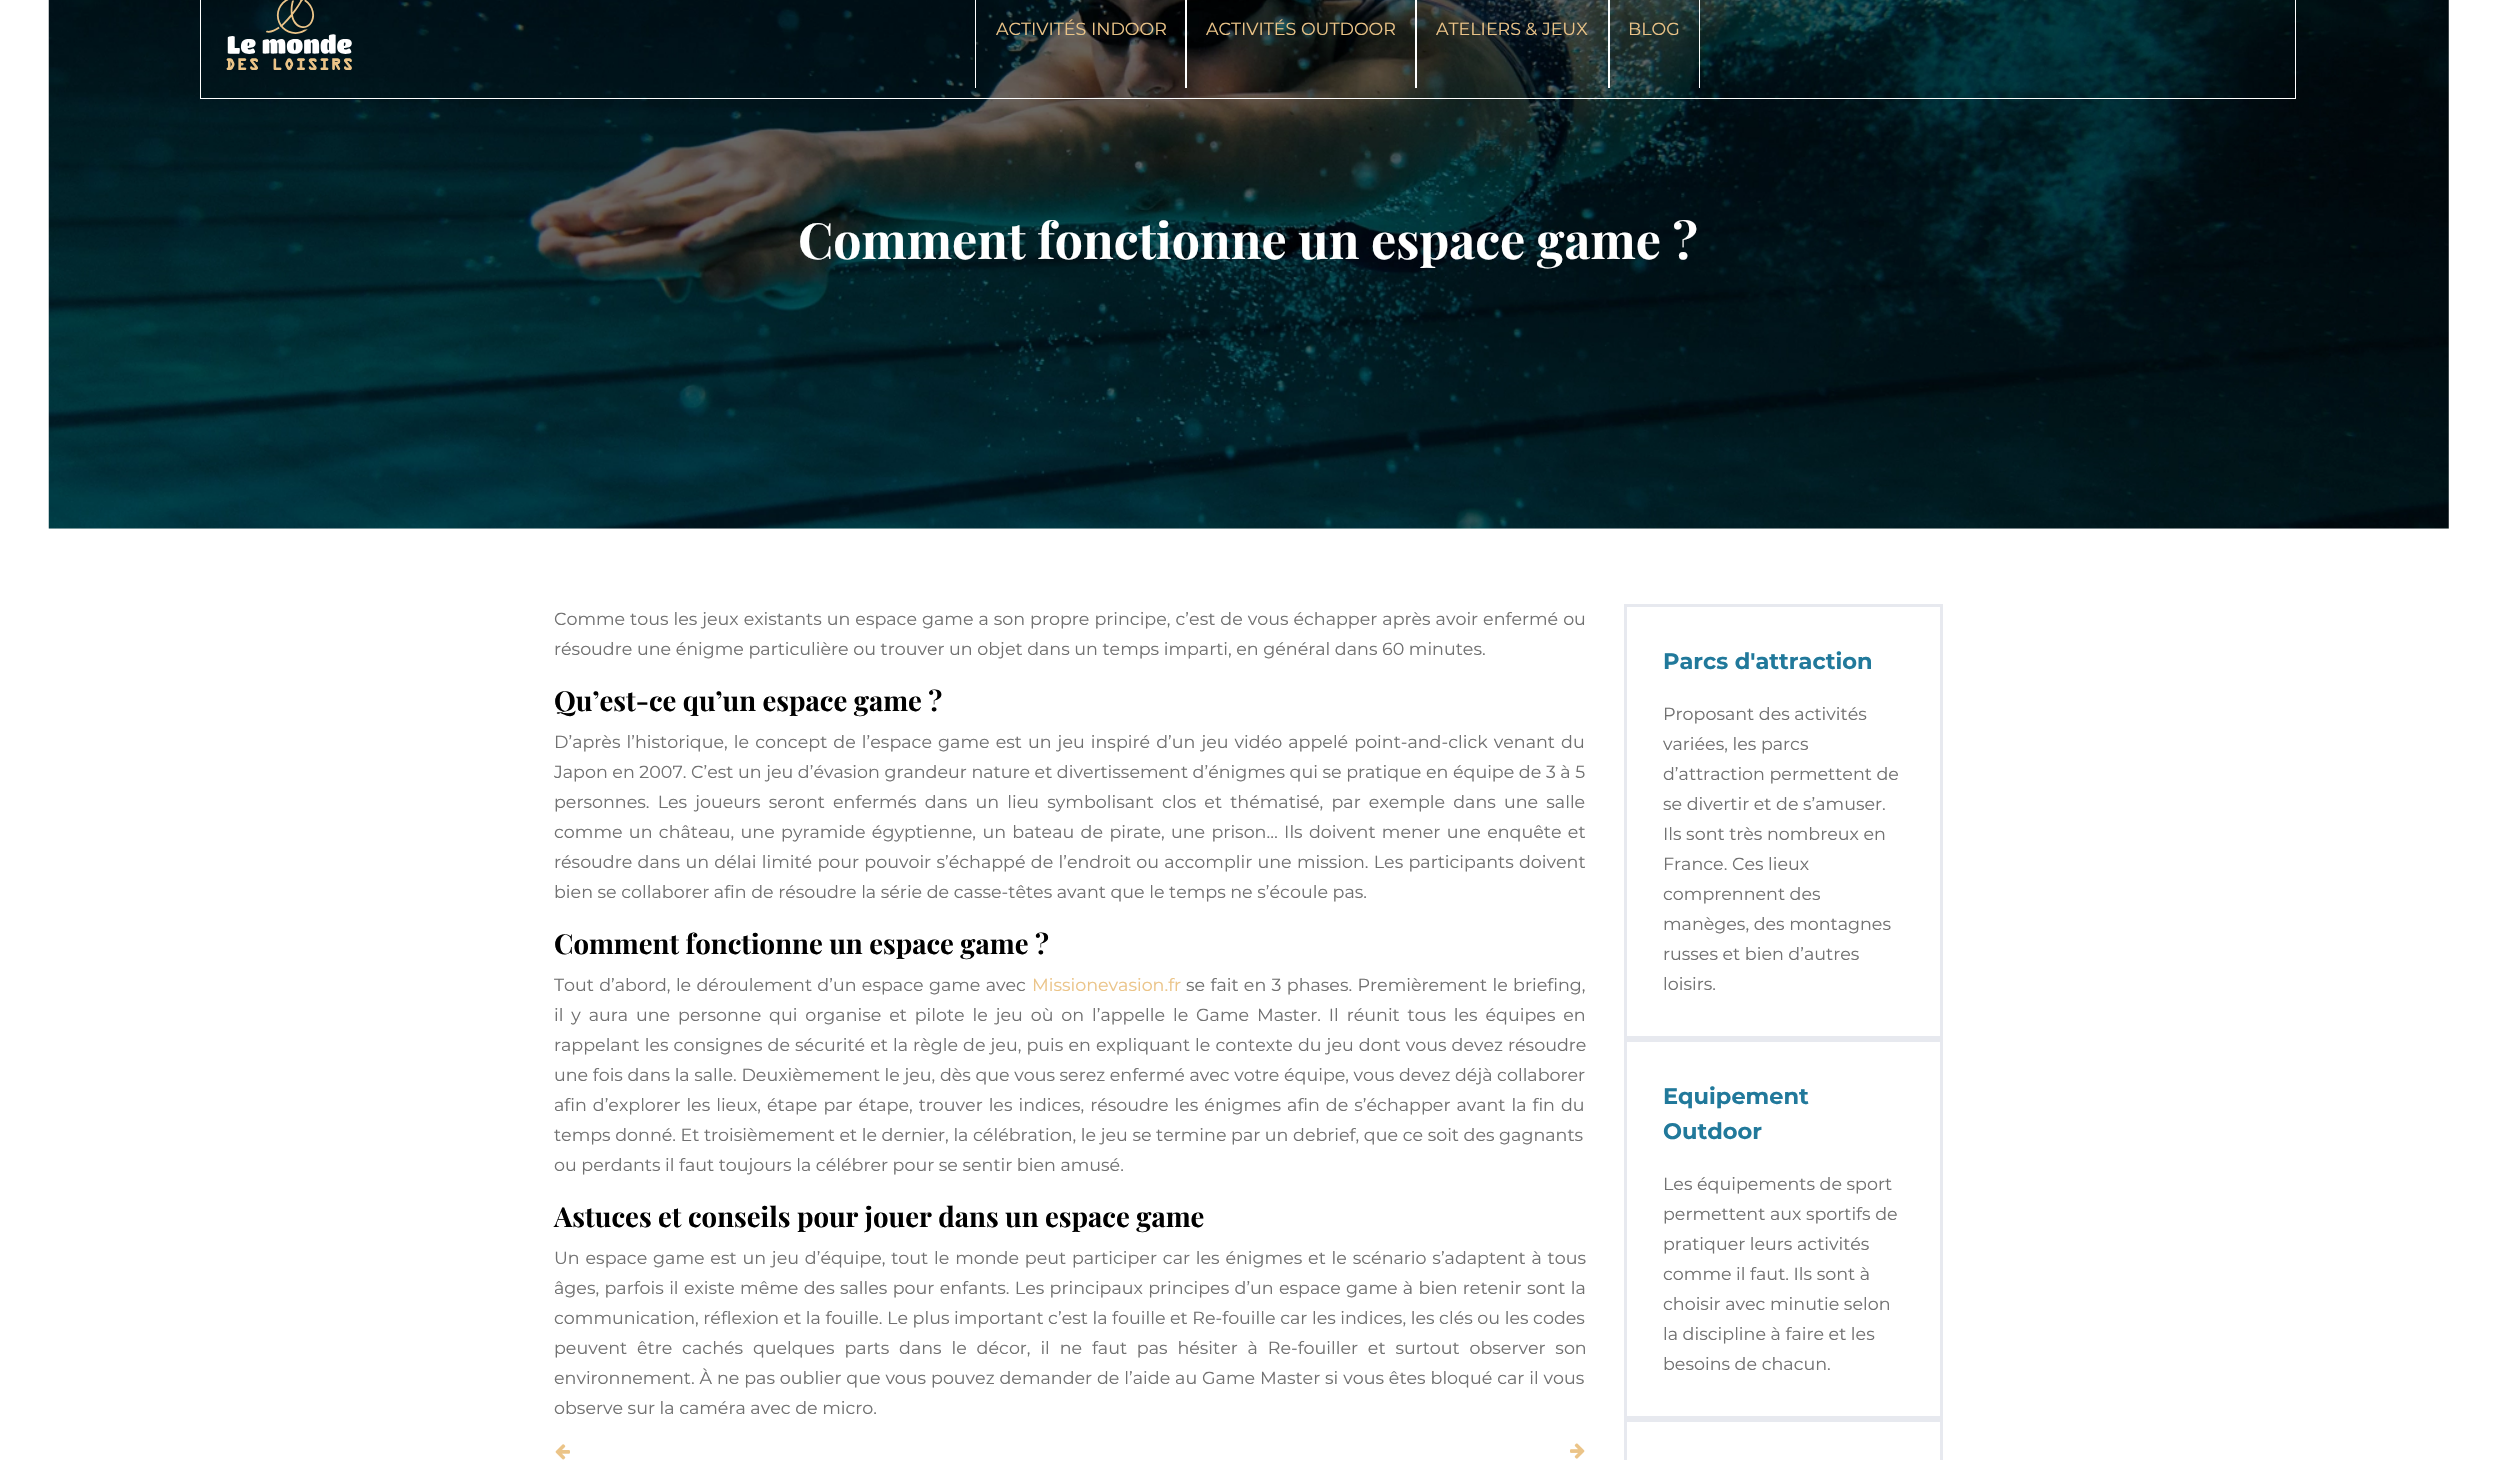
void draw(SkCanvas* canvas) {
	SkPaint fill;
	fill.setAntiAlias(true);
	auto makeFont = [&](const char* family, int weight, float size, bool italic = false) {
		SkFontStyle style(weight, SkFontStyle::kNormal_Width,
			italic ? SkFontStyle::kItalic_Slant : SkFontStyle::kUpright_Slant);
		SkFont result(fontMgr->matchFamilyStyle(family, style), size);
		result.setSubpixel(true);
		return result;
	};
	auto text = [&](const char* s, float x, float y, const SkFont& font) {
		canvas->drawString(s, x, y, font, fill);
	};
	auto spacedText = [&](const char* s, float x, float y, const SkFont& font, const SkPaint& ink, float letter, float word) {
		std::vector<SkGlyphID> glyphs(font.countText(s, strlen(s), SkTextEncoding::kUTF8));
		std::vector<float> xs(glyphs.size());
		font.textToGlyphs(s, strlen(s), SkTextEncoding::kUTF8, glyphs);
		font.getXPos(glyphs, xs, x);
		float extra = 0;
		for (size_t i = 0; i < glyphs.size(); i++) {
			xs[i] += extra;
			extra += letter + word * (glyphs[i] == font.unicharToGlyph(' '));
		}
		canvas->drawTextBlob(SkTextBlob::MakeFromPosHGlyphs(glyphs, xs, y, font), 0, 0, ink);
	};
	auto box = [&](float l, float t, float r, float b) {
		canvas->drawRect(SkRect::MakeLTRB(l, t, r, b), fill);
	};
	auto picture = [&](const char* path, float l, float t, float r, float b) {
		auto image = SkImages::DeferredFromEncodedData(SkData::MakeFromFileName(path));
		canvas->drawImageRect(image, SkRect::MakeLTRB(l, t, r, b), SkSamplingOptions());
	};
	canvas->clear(0xFFFFFFFF);
	fill.setColor(0xFFEEEEEE);
	box(49, 0, 2449, 529);
	picture("image1.png", 48, 0, 2449, 529);
	fill.setStyle(SkPaint::kStroke_Style);
	fill.setStrokeWidth(1);
	fill.setColor(0xFFFFFFFF);
	canvas->drawRect(SkRect::MakeLTRB(200.5f, -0.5f, 2295.5f, 98.5f), fill);
	picture("image0.png", 226, 0, 352, 70);
	fill.setStyle(SkPaint::kFill_Style);
	box(1185, 0, 1187, 88);
	box(975, 0, 976, 88);
	box(1415, 0, 1417, 88);
	box(1608, 0, 1610, 88);
	box(1699, 0, 1700, 88);
	picture("image2.png", 555, 1444, 570, 1460);
	picture("image3.png", 1570, 1443, 1585, 1459);
	fill.setStyle(SkPaint::kStroke_Style);
	fill.setStrokeWidth(3);
	fill.setColor(0xFFE7E9EF);
	canvas->drawRect(SkRect::MakeLTRB(1625.5f, 605.5f, 1941.5f, 1037.5f), fill);
	canvas->drawRect(SkRect::MakeLTRB(1625.5f, 1040.5f, 1941.5f, 1417.5f), fill);
	canvas->drawRect(SkRect::MakeLTRB(1625.5f, 1420.5f, 1941.5f, 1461.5f), fill);
	auto font1 = makeFont("Montserrat", 400, 17.5f);
	fill.setStyle(SkPaint::kFill_Style);
	fill.setColor(0xFFEBC488);
	text("ACTIVITÉS INDOOR", 996, 35, font1);
	text("ACTIVITÉS OUTDOOR", 1206, 35, font1);
	text("ATELIERS & JEUX", 1436, 35, font1);
	text("BLOG", 1628, 35, font1);
	auto font2 = makeFont("Playfair Display", 700, 50);
	fill.setColor(0xFFFFFFFF);
	text("Comment fonctionne un espace game ?", 798, 259, font2);
	fill.setColor(0xFF717171);
	spacedText("Comme tous les jeux existants un espace game a son propre principe, c’est de vous échapper après avoir enfermé ou", 554, 625, font1, fill, 0, 0.4f);
	text("résoudre une énigme particulière ou trouver un objet dans un temps imparti, en général dans 60 minutes.", 554, 655, font1);
	auto font3 = makeFont("Playfair Display", 700, 27.5f);
	fill.setColor(0xFF000000);
	text("Qu’est-ce qu’un espace game ?", 554, 711, font3);
	fill.setColor(0xFF717171);
	spacedText("D’après l’historique, le concept de l’espace game est un jeu inspiré d’un jeu vidéo appelé point-and-click venant du", 554, 748, font1, fill, 0, 1.5f);
	text("Japon en 2007. C’est un jeu d’évasion grandeur nature et divertissement d’énigmes qui se pratique en équipe de 3 à 5", 554, 778, font1);
	spacedText("personnes. Les joueurs seront enfermés dans un lieu symbolisant clos et thématisé, par exemple dans une salle", 554, 808, font1, fill, 0, 3.6f);
	spacedText("comme un château, une pyramide égyptienne, un bateau de pirate, une prison… Ils doivent mener une enquête et", 554, 838, font1, fill, 0, 1.75f);
	spacedText("résoudre dans un délai limité pour pouvoir s’échappé de l’endroit ou accomplir une mission. Les participants doivent", 554, 868, font1, fill, 0, 0.7f);
	text("bien se collaborer afin de résoudre la série de casse-têtes avant que le temps ne s’écoule pas.", 554, 898, font1);
	fill.setColor(0xFF000000);
	text("Comment fonctionne un espace game ?", 554, 954, font3);
	fill.setColor(0xFF717171);
	spacedText("Tout d’abord, le déroulement d’un espace game avec", 554, 991, font1, fill, 0, 0.75f);
	fill.setColor(0xFFEBC488);
	text("Missionevasion.fr", 1032, 991, font1);
	fill.setColor(0xFF717171);
	spacedText("se fait en 3 phases. Premièrement le briefing,", 1186, 991, font1, fill, 0, 0.75f);
	spacedText("il y aura une personne qui organise et pilote le jeu où on l’appelle le Game Master. Il réunit tous les équipes en", 554, 1021, font1, fill, 0, 3.3f);
	spacedText("rappelant les consignes de sécurité et la règle de jeu, puis en expliquant le contexte du jeu dont vous devez résoudre", 554, 1051, font1, fill, 0, 0.5f);
	text("une fois dans la salle. Deuxièmement le jeu, dès que vous serez enfermé avec votre équipe, vous devez déjà collaborer", 554, 1081, font1);
	spacedText("afin d’explorer les lieux, étape par étape, trouver les indices, résoudre les énigmes afin de s’échapper avant la fin du", 554, 1111, font1, fill, 0, 1.4f);
	text("temps donné. Et troisièmement et le dernier, la célébration, le jeu se termine par un debrief, que ce soit des gagnants", 554, 1141, font1);
	text("ou perdants il faut toujours la célébrer pour se sentir bien amusé.", 554, 1171, font1);
	fill.setColor(0xFF000000);
	text("Astuces et conseils pour jouer dans un espace game", 554, 1227, font3);
	fill.setColor(0xFF717171);
	spacedText("Un espace game est un jeu d’équipe, tout le monde peut participer car les énigmes et le scénario s’adaptent à tous", 554, 1264, font1, fill, 0, 1.25f);
	spacedText("âges, parfois il existe même des salles pour enfants. Les principaux principes d’un espace game à bien retenir sont la", 554, 1294, font1, fill, 0, 0.75f);
	text("communication, réflexion et la fouille. Le plus important c’est la fouille et Re-fouille car les indices, les clés ou les codes", 554, 1324, font1);
	spacedText("peuvent être cachés quelques parts dans le décor, il ne faut pas hésiter à Re-fouiller et surtout observer son", 554, 1354, font1, fill, 0, 5.25f);
	spacedText("environnement. À ne pas oublier que vous pouvez demander de l’aide au Game Master si vous êtes bloqué car il vous", 554, 1384, font1, fill, 0, 0.3f);
	text("observe sur la caméra avec de micro.", 554, 1414, font1);
	auto font4 = makeFont("Montserrat", 700, 22.5f);
	fill.setColor(0xFF21799B);
	text("Parcs d'attraction", 1663, 669, font4);
	fill.setColor(0xFF717171);
	text("Proposant des activités", 1663, 720, font1);
	text("variées, les parcs", 1663, 750, font1);
	text("d’attraction permettent de", 1663, 780, font1);
	text("se divertir et de s’amuser.", 1663, 810, font1);
	text("Ils sont très nombreux en", 1663, 840, font1);
	text("France. Ces lieux", 1663, 870, font1);
	text("comprennent des", 1663, 900, font1);
	text("manèges, des montagnes", 1663, 930, font1);
	text("russes et bien d’autres", 1663, 960, font1);
	text("loisirs.", 1663, 990, font1);
	fill.setColor(0xFF21799B);
	text("Equipement", 1663, 1104, font4);
	text("Outdoor", 1663, 1139, font4);
	fill.setColor(0xFF717171);
	text("Les équipements de sport", 1663, 1190, font1);
	text("permettent aux sportifs de", 1663, 1220, font1);
	text("pratiquer leurs activités", 1663, 1250, font1);
	text("comme il faut. Ils sont à", 1663, 1280, font1);
	text("choisir avec minutie selon", 1663, 1310, font1);
	text("la discipline à faire et les", 1663, 1340, font1);
	text("besoins de chacun.", 1663, 1370, font1);
}
